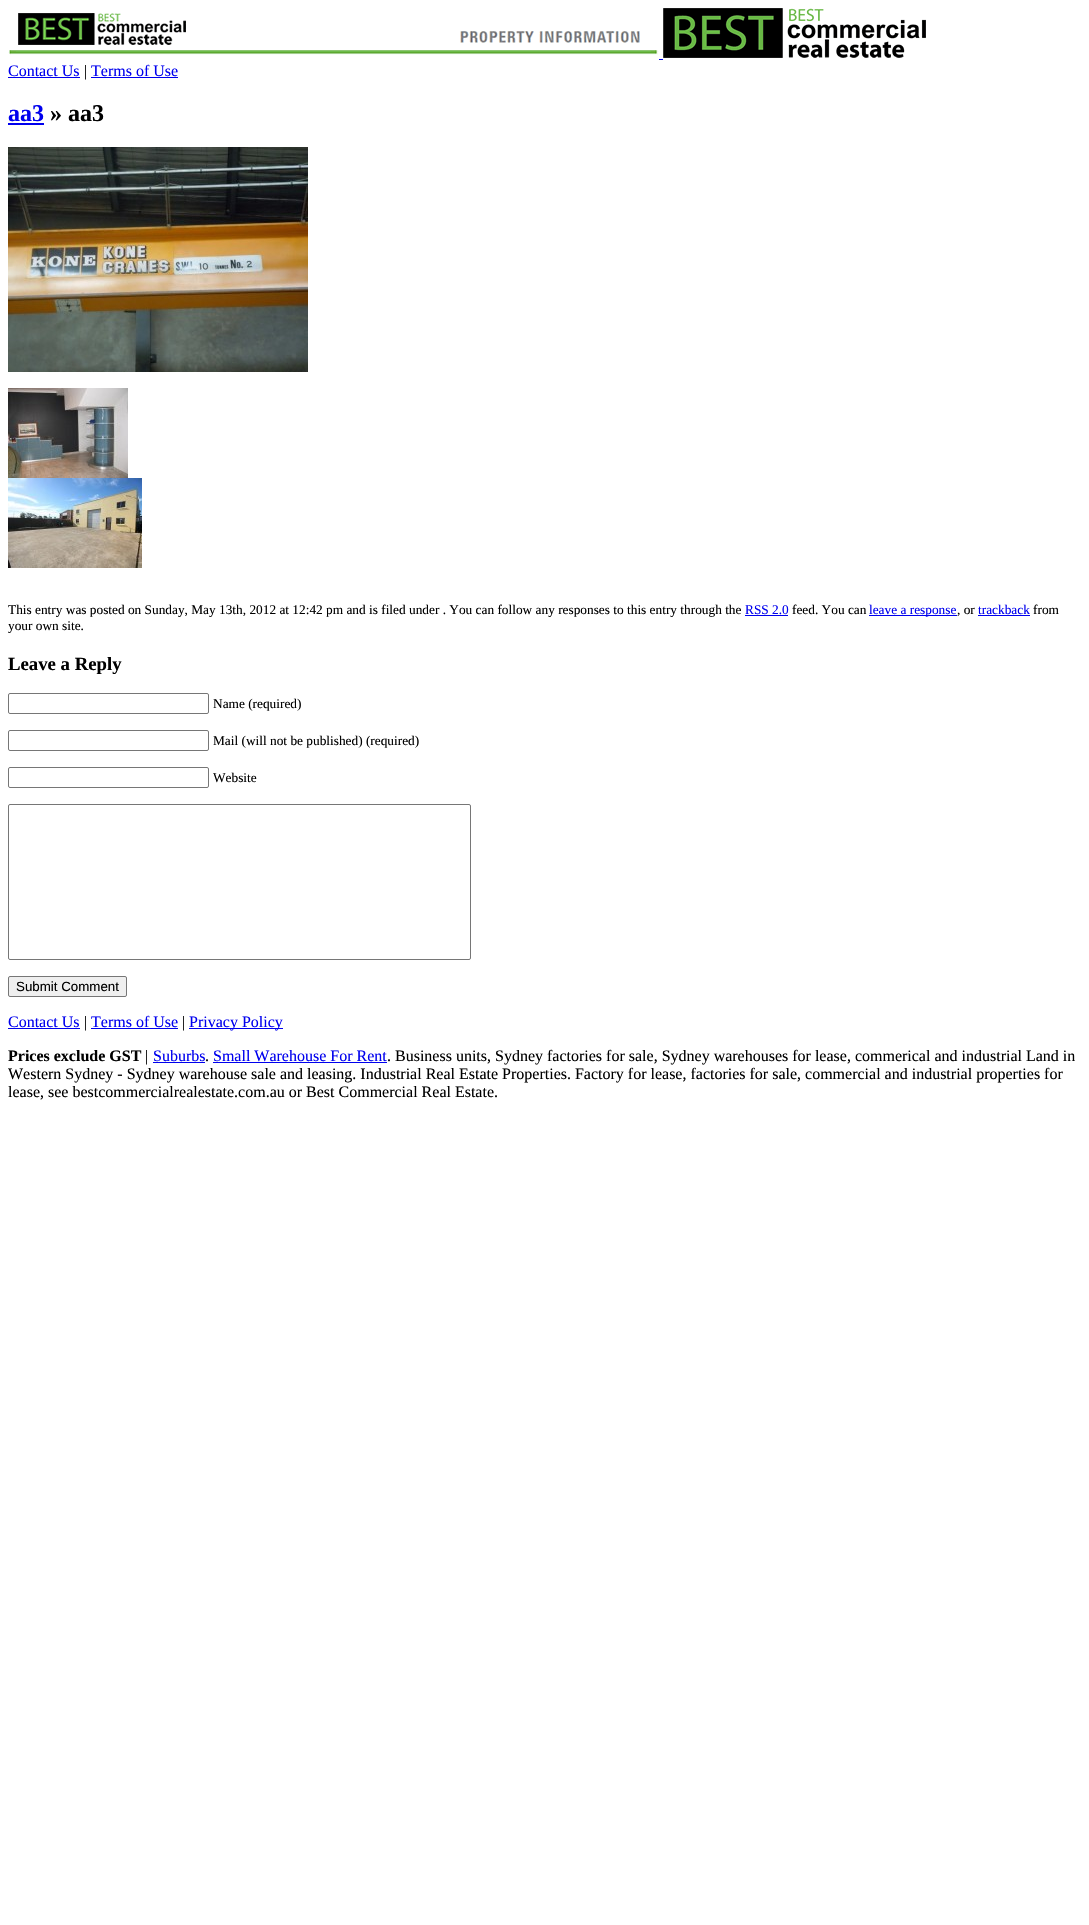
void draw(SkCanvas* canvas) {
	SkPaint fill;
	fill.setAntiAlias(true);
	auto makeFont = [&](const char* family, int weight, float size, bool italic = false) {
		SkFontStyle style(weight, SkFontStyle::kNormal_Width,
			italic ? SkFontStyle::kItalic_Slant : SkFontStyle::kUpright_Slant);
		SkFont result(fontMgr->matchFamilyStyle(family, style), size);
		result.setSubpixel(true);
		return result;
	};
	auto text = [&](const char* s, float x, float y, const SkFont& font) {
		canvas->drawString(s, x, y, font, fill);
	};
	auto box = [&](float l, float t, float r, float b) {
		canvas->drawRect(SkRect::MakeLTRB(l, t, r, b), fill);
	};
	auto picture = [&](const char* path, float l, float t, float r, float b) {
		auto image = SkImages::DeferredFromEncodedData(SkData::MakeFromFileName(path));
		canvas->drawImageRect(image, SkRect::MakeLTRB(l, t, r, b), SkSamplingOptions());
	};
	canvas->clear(0xFFFFFFFF);
	picture("image0.png", 8, 13, 659, 55);
	picture("image1.png", 663, 8, 926, 58);
	fill.setColor(0xFF0000EE);
	box(659, 59, 663, 60);
	box(8, 77, 80, 78);
	box(91, 77, 178, 78);
	box(8, 123, 44, 125);
	picture("image2.png", 8, 147, 308, 372);
	picture("image3.png", 8, 388, 128, 478);
	picture("image4.png", 8, 478, 142, 568);
	box(745, 615, 788, 616);
	box(869, 615, 957, 616);
	box(978, 615, 1030, 616);
	fill.setStyle(SkPaint::kStroke_Style);
	fill.setStrokeWidth(1);
	fill.setColor(0xFF767676);
	canvas->drawRoundRect(SkRect::MakeLTRB(8.5f, 693.5f, 208.5f, 713.5f), 1.5f, 1.5f, fill);
	canvas->drawRoundRect(SkRect::MakeLTRB(8.5f, 730.5f, 208.5f, 750.5f), 1.5f, 1.5f, fill);
	canvas->drawRoundRect(SkRect::MakeLTRB(8.5f, 767.5f, 208.5f, 787.5f), 1.5f, 1.5f, fill);
	canvas->drawRoundRect(SkRect::MakeLTRB(8.5f, 804.5f, 470.5f, 959.5f), 1.5f, 1.5f, fill);
	fill.setStyle(SkPaint::kFill_Style);
	fill.setColor(0xFFEFEFEF);
	canvas->drawRoundRect(SkRect::MakeLTRB(8.5f, 976.5f, 126.5f, 996.5f), 1.5f, 1.5f, fill);
	fill.setStyle(SkPaint::kStroke_Style);
	fill.setColor(0xFF767676);
	canvas->drawRoundRect(SkRect::MakeLTRB(8.5f, 976.5f, 126.5f, 996.5f), 1.5f, 1.5f, fill);
	fill.setStyle(SkPaint::kFill_Style);
	fill.setColor(0xFF0000EE);
	box(8, 1028, 80, 1029);
	box(91, 1028, 178, 1029);
	box(189, 1028, 283, 1029);
	box(153, 1062, 205, 1063);
	box(213, 1062, 387, 1063);
	auto font1 = makeFont("Liberation Serif", 400, 16);
	text("Contact Us", 8, 76, font1);
	fill.setColor(0xFF000000);
	text("|", 84, 76, font1);
	fill.setColor(0xFF0000EE);
	text("Terms of Use", 91, 76, font1);
	auto font2 = makeFont("Liberation Serif", 700, 24);
	text("aa3", 8, 121, font2);
	fill.setColor(0xFF000000);
	text("» aa3", 50, 121, font2);
	auto font3 = makeFont("Liberation Serif", 400, 13.33f);
	text("This entry was posted on Sunday, May 13th, 2012 at 12:42 pm and is filed under . You can follow any responses to this entry through the", 8, 614, font3);
	fill.setColor(0xFF0000EE);
	text("RSS 2.0", 745, 614, font3);
	fill.setColor(0xFF000000);
	text("feed. You can", 792, 614, font3);
	fill.setColor(0xFF0000EE);
	text("leave a response", 869, 614, font3);
	fill.setColor(0xFF000000);
	text(", or", 957, 614, font3);
	fill.setColor(0xFF0000EE);
	text("trackback", 978, 614, font3);
	fill.setColor(0xFF000000);
	text("from", 1033, 614, font3);
	text("your own site.", 8, 630, font3);
	auto font4 = makeFont("Liberation Serif", 700, 18.75f);
	text("Leave a Reply", 8, 670, font4);
	text("Name (required)", 213, 708, font3);
	text("Mail (will not be published) (required)", 213, 745, font3);
	text("Website", 213, 782, font3);
	auto font5 = makeFont("Liberation Sans", 400, 13.33f);
	text("Submit Comment", 16, 991, font5);
	fill.setColor(0xFF0000EE);
	text("Contact Us", 8, 1027, font1);
	fill.setColor(0xFF000000);
	text("|", 84, 1027, font1);
	fill.setColor(0xFF0000EE);
	text("Terms of Use", 91, 1027, font1);
	fill.setColor(0xFF000000);
	text("|", 182, 1027, font1);
	fill.setColor(0xFF0000EE);
	text("Privacy Policy", 189, 1027, font1);
	auto font6 = makeFont("Liberation Serif", 700, 16);
	fill.setColor(0xFF000000);
	text("Prices exclude GST", 8, 1061, font6);
	text("|", 145, 1061, font1);
	fill.setColor(0xFF0000EE);
	text("Suburbs", 153, 1061, font1);
	fill.setColor(0xFF000000);
	text(".", 205, 1061, font1);
	fill.setColor(0xFF0000EE);
	text("Small Warehouse For Rent", 213, 1061, font1);
	fill.setColor(0xFF000000);
	text(". Business units, Sydney factories for sale, Sydney warehouses for lease, commerical and industrial Land in", 387, 1061, font1);
	text("Western Sydney - Sydney warehouse sale and leasing. Industrial Real Estate Properties. Factory for lease, factories for sale, commercial and industrial properties for", 8, 1079, font1);
	text("lease, see bestcommercialrealestate.com.au or Best Commercial Real Estate.", 8, 1097, font1);
}
